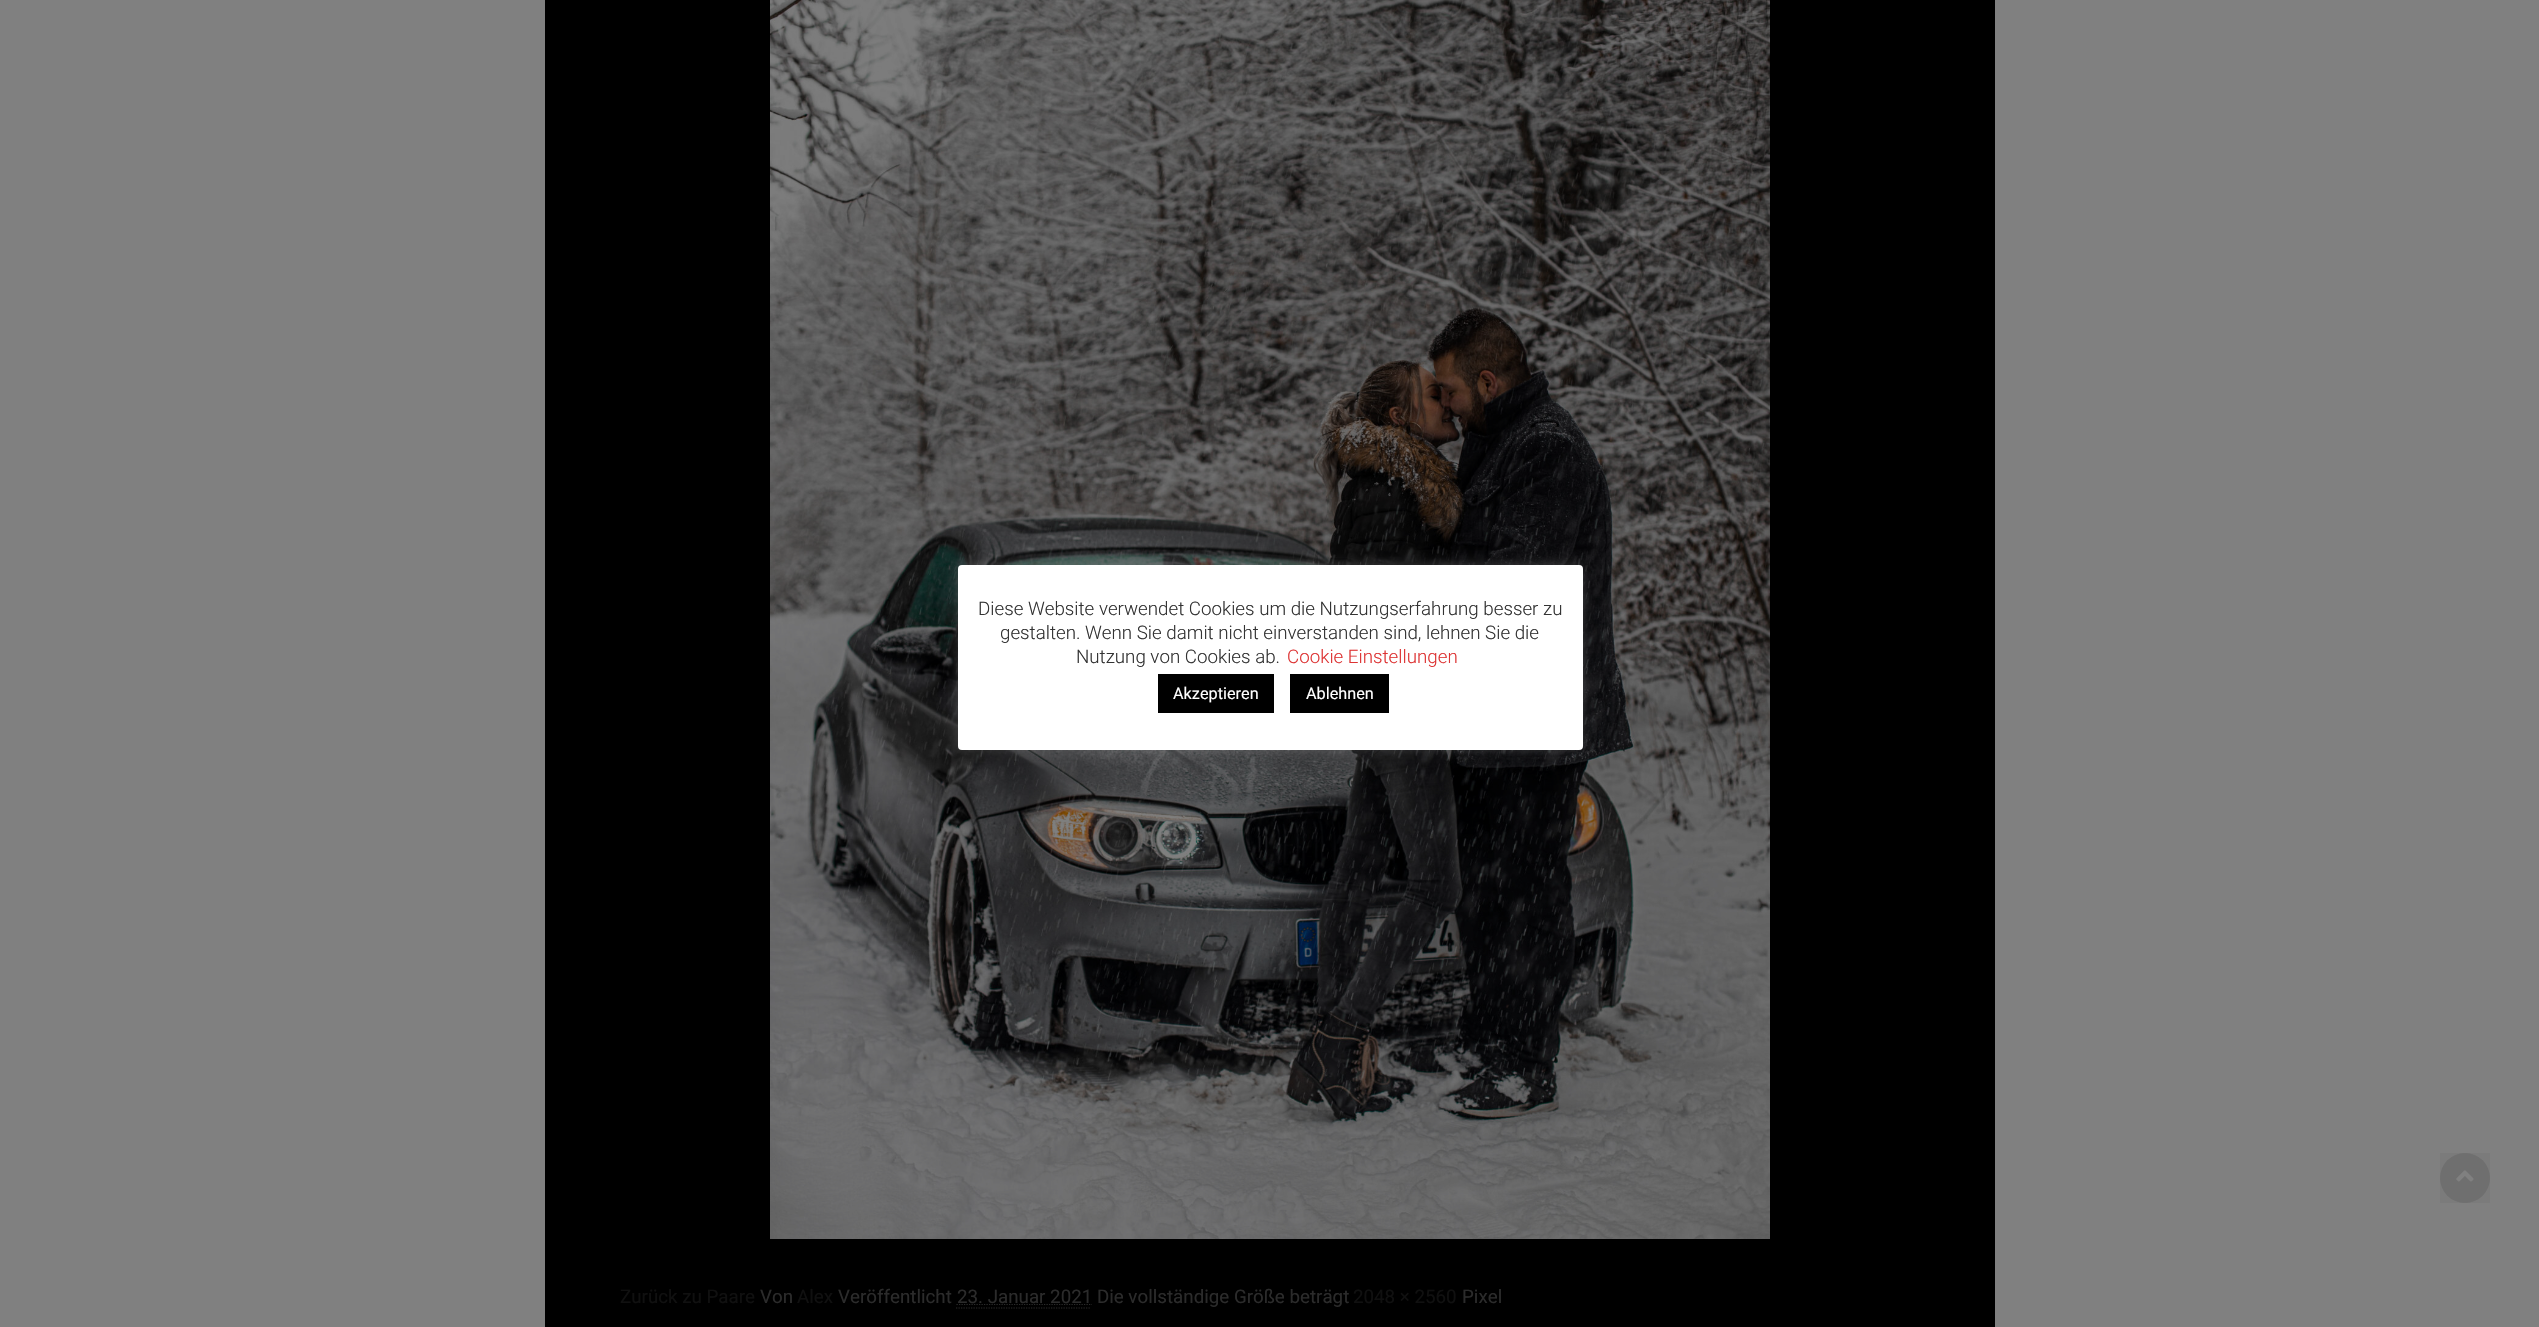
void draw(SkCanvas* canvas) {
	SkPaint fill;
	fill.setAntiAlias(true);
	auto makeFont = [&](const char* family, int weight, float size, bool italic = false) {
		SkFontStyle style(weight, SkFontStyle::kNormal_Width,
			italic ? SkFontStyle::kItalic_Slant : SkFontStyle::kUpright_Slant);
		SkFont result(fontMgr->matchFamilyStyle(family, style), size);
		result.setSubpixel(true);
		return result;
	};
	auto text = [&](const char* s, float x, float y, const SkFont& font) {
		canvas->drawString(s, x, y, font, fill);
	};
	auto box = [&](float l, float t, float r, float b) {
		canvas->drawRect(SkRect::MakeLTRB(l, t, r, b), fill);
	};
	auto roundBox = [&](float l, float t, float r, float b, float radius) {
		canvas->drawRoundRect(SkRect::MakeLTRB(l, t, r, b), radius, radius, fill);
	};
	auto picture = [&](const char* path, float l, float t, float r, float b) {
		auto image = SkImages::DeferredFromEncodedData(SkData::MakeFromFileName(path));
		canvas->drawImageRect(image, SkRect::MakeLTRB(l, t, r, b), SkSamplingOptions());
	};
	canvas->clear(0xFF808080);
	fill.setColor(0xFF000000);
	box(545, 0, 1995, 1327);
	picture("image1.png", 770, 0, 1770, 1239);
	fill.setColor(0x4DACABAB);
	fill.setMaskFilter(SkMaskFilter::MakeBlur(kNormal_SkBlurStyle, 6));
	canvas->drawRoundRect(SkRect::MakeLTRB(958, 564, 1583, 749), 4, 4, fill);
	fill.setMaskFilter(nullptr);
	fill.setColor(0xFFFFFFFF);
	roundBox(958, 565, 1583, 750, 4);
	fill.setColor(0xFF000000);
	box(1158, 674, 1274, 713);
	box(1290, 674, 1389, 713);
	fill.setColor(0xFF737373);
	canvas->drawCircle(2465, 1178, 25, fill);
	fill.setColor(0x0A000000);
	box(2440, 1153, 2490, 1203);
	picture("image0.png", 2456, 1170, 2474, 1182);
	fill.setStyle(SkPaint::kStroke_Style);
	fill.setStrokeWidth(1.2f);
	fill.setColor(0xFF2B2B2B);
	fill.setPathEffect(SkDashPathEffect::Make({{1.25f, 1.25f}}, 0));
	canvas->drawPath(SkPathBuilder().moveTo(956, 1308).lineTo(1091, 1308).detach(), fill);
	fill.setPathEffect(nullptr);
	fill.setPathEffect(SkDashPathEffect::Make({{1.25f, 1.25f}}, 0));
	canvas->drawPath(SkPathBuilder().moveTo(956.5f, 1304.5f).lineTo(1092, 1304.5f).detach(), fill);
	fill.setPathEffect(nullptr);
	auto font1 = makeFont("Roboto", 300, 18.75f);
	fill.setStyle(SkPaint::kFill_Style);
	fill.setColor(0xFF333333);
	text("Diese Website verwendet Cookies um die Nutzungserfahrung besser zu", 978, 615, font1);
	text("gestalten. Wenn Sie damit nicht einverstanden sind, lehnen Sie die", 1000, 639, font1);
	text("Nutzung von Cookies ab.", 1076, 663, font1);
	fill.setColor(0xFFDD3333);
	text("Cookie Einstellungen", 1287, 663, font1);
	auto font2 = makeFont("Roboto", 400, 16.25f);
	fill.setColor(0xFFFFFFFF);
	text("Akzeptieren", 1173, 699, font2);
	text("Ablehnen", 1306, 699, font2);
	auto font3 = makeFont("Roboto", 400, 18.75f);
	fill.setColor(0xFF101010);
	text("Zurück zu Paare", 620, 1303, font3);
	fill.setColor(0xFF2B2B2B);
	text("Von", 760, 1303, font3);
	fill.setColor(0xFF101010);
	text("Alex", 797, 1303, font3);
	fill.setColor(0xFF2B2B2B);
	text("Veröffentlicht", 838, 1303, font3);
	text("23. Januar 2021 Die vollständige Größe beträgt", 957, 1303, font3);
	fill.setColor(0xFF101010);
	text("2048 × 2560", 1353, 1303, font3);
	fill.setColor(0xFF2B2B2B);
	text("Pixel", 1462, 1303, font3);
}
